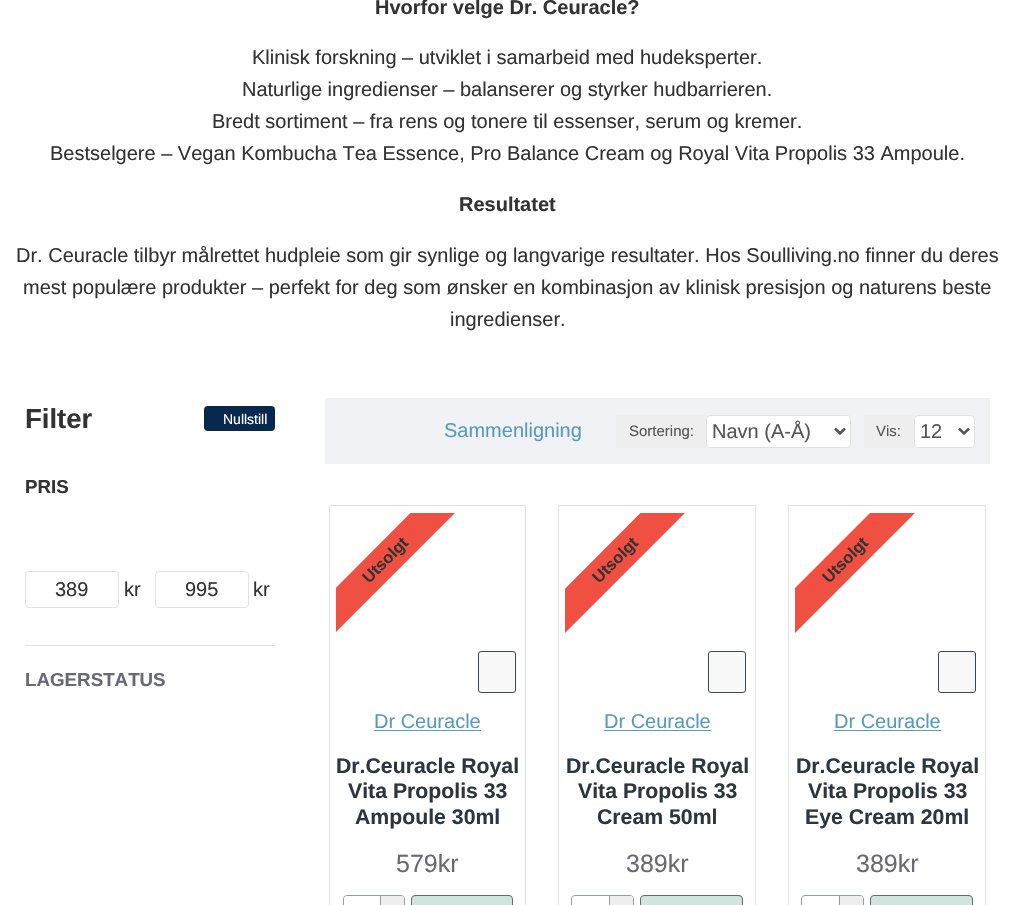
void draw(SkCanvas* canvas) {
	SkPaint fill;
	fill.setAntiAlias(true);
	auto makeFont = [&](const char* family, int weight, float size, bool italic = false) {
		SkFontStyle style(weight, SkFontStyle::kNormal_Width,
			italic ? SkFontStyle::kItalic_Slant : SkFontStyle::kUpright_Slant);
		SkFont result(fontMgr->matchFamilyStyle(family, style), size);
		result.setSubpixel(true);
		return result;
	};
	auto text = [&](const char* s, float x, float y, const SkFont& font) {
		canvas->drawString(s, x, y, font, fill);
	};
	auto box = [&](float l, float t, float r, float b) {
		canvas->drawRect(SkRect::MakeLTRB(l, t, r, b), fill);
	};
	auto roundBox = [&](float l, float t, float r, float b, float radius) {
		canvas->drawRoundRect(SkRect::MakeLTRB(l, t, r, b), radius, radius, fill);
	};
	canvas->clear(0xFFFFFFFF);
	fill.setColor(0xFF08274D);
	roundBox(204, 406, 275, 431, 4);
	fill.setStyle(SkPaint::kStroke_Style);
	fill.setStrokeWidth(1);
	fill.setColor(0xFFE2E2E2);
	canvas->drawRoundRect(SkRect::MakeLTRB(25.5f, 571.5f, 118.5f, 607.5f), 3.5f, 3.5f, fill);
	canvas->drawRoundRect(SkRect::MakeLTRB(155.5f, 571.5f, 248.5f, 607.5f), 3.5f, 3.5f, fill);
	fill.setStyle(SkPaint::kFill_Style);
	box(25, 645, 275, 646);
	fill.setColor(0xFFF0F2F5);
	box(325, 398, 990, 464);
	fill.setColor(0xFFEEEEEE);
	box(616, 415, 706, 448);
	fill.setColor(0xFFFFFFFF);
	canvas->drawRoundRect(SkRect::MakeLTRB(706.5f, 415.5f, 850.5f, 447.5f), 3.5f, 3.5f, fill);
	fill.setStyle(SkPaint::kStroke_Style);
	fill.setColor(0xFFE2E2E2);
	canvas->drawRoundRect(SkRect::MakeLTRB(706.5f, 415.5f, 850.5f, 447.5f), 3.5f, 3.5f, fill);
	fill.setStrokeWidth(2.5f);
	fill.setColor(0xFF555555);
	canvas->drawPath(SkPathBuilder().moveTo(835, 428.5f).lineTo(840, 433.5f).lineTo(845, 428.5f).detach(), fill);
	fill.setStyle(SkPaint::kFill_Style);
	fill.setColor(0xFFEEEEEE);
	box(864, 415, 914, 448);
	fill.setColor(0xFFFFFFFF);
	canvas->drawRoundRect(SkRect::MakeLTRB(914.5f, 415.5f, 974.5f, 447.5f), 3.5f, 3.5f, fill);
	fill.setStyle(SkPaint::kStroke_Style);
	fill.setStrokeWidth(1);
	fill.setColor(0xFFE2E2E2);
	canvas->drawRoundRect(SkRect::MakeLTRB(914.5f, 415.5f, 974.5f, 447.5f), 3.5f, 3.5f, fill);
	fill.setStrokeWidth(2.5f);
	fill.setColor(0xFF555555);
	canvas->drawPath(SkPathBuilder().moveTo(959, 428.5f).lineTo(964, 433.5f).lineTo(969, 428.5f).detach(), fill);
	fill.setStrokeWidth(1);
	fill.setColor(0xFFE2E2E2);
	canvas->drawRect(SkRect::MakeLTRB(329.5f, 505.5f, 525.5f, 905.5f), fill);
	canvas->save();
	canvas->clipRect(SkRect::MakeLTRB(336, 513, 519, 696));
	fill.setStyle(SkPaint::kFill_Style);
	fill.setColor(0xFFEF5042);
	canvas->drawPath(SkPathBuilder().moveTo(227, 697).lineTo(522, 401).cubicTo(529, 395, 539, 395, 545, 401).cubicTo(551, 407, 551, 417, 545, 423).lineTo(249, 719).cubicTo(243, 725, 233, 725, 227, 719).cubicTo(220, 713, 220, 703, 227, 697).close().detach(), fill);
	canvas->restore();
	fill.setColor(0xFFF8F8F8);
	canvas->drawRoundRect(SkRect::MakeLTRB(478.5f, 651.5f, 515.5f, 692.5f), 2.5f, 2.5f, fill);
	fill.setStyle(SkPaint::kStroke_Style);
	fill.setColor(0xFF3A4754);
	canvas->drawRoundRect(SkRect::MakeLTRB(478.5f, 651.5f, 515.5f, 692.5f), 2.5f, 2.5f, fill);
	fill.setStyle(SkPaint::kFill_Style);
	fill.setColor(0xFF579AC1);
	box(374, 730, 481, 731);
	fill.setStyle(SkPaint::kStroke_Style);
	fill.setColor(0xFF8F9DA6);
	canvas->drawRoundRect(SkRect::MakeLTRB(343.5f, 895.5f, 404.5f, 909.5f), 3.5f, 3.5f, fill);
	fill.setStyle(SkPaint::kFill_Style);
	fill.setColor(0xFFFFFFFF);
	roundBox(344, 896, 404, 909, 4);
	fill.setColor(0xFF8F9DA6);
	box(380, 896, 381, 905);
	fill.setColor(0xFFEEEEEE);
	canvas->drawPath(SkPathBuilder().moveTo(381, 896).lineTo(401.5f, 896).cubicTo(403, 896, 404, 897, 404, 898.5f).lineTo(404, 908).lineTo(381, 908).close().detach(), fill);
	fill.setColor(0xFFD1E4DD);
	canvas->drawRoundRect(SkRect::MakeLTRB(411.5f, 895.5f, 512.5f, 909.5f), 3.5f, 3.5f, fill);
	fill.setStyle(SkPaint::kStroke_Style);
	fill.setColor(0xFF696973);
	canvas->drawRoundRect(SkRect::MakeLTRB(411.5f, 895.5f, 512.5f, 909.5f), 3.5f, 3.5f, fill);
	fill.setColor(0xFFE2E2E2);
	canvas->drawRect(SkRect::MakeLTRB(558.5f, 505.5f, 755.5f, 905.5f), fill);
	canvas->save();
	canvas->clipRect(SkRect::MakeLTRB(565, 513, 749, 696));
	fill.setStyle(SkPaint::kFill_Style);
	fill.setColor(0xFFEF5042);
	canvas->drawPath(SkPathBuilder().moveTo(457, 697).lineTo(752, 401).cubicTo(759, 395, 769, 395, 775, 401).cubicTo(781, 407, 781, 417, 775, 423).lineTo(479, 719).cubicTo(473, 725, 463, 725, 457, 719).cubicTo(450, 713, 450, 703, 457, 697).close().detach(), fill);
	canvas->restore();
	fill.setColor(0xFFF8F8F8);
	canvas->drawRoundRect(SkRect::MakeLTRB(708.5f, 651.5f, 745.5f, 692.5f), 2.5f, 2.5f, fill);
	fill.setStyle(SkPaint::kStroke_Style);
	fill.setColor(0xFF3A4754);
	canvas->drawRoundRect(SkRect::MakeLTRB(708.5f, 651.5f, 745.5f, 692.5f), 2.5f, 2.5f, fill);
	fill.setStyle(SkPaint::kFill_Style);
	fill.setColor(0xFF579AC1);
	box(604, 730, 711, 731);
	fill.setStyle(SkPaint::kStroke_Style);
	fill.setColor(0xFF8F9DA6);
	canvas->drawRoundRect(SkRect::MakeLTRB(571.5f, 895.5f, 633.5f, 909.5f), 3.5f, 3.5f, fill);
	fill.setStyle(SkPaint::kFill_Style);
	fill.setColor(0xFFFFFFFF);
	roundBox(573, 896, 633, 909, 4);
	fill.setColor(0xFF8F9DA6);
	box(609, 896, 610, 905);
	fill.setColor(0xFFEEEEEE);
	canvas->drawPath(SkPathBuilder().moveTo(610, 896).lineTo(630.5f, 896).cubicTo(632, 896, 633, 897, 633, 898.5f).lineTo(633, 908).lineTo(610, 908).close().detach(), fill);
	fill.setColor(0xFFD1E4DD);
	canvas->drawRoundRect(SkRect::MakeLTRB(640.5f, 895.5f, 742.5f, 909.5f), 3.5f, 3.5f, fill);
	fill.setStyle(SkPaint::kStroke_Style);
	fill.setColor(0xFF696973);
	canvas->drawRoundRect(SkRect::MakeLTRB(640.5f, 895.5f, 742.5f, 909.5f), 3.5f, 3.5f, fill);
	fill.setColor(0xFFE2E2E2);
	canvas->drawRect(SkRect::MakeLTRB(788.5f, 505.5f, 985.5f, 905.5f), fill);
	canvas->save();
	canvas->clipRect(SkRect::MakeLTRB(795, 513, 979, 696));
	fill.setStyle(SkPaint::kFill_Style);
	fill.setColor(0xFFEF5042);
	canvas->drawPath(SkPathBuilder().moveTo(686, 697).lineTo(982, 401).cubicTo(989, 395, 999, 395, 1005, 401).cubicTo(1011, 407, 1011, 417, 1005, 423).lineTo(709, 719).cubicTo(703, 725, 693, 725, 686, 719).cubicTo(680, 713, 680, 703, 686, 697).close().detach(), fill);
	canvas->restore();
	fill.setColor(0xFFF8F8F8);
	canvas->drawRoundRect(SkRect::MakeLTRB(938.5f, 651.5f, 975.5f, 692.5f), 2.5f, 2.5f, fill);
	fill.setStyle(SkPaint::kStroke_Style);
	fill.setColor(0xFF3A4754);
	canvas->drawRoundRect(SkRect::MakeLTRB(938.5f, 651.5f, 975.5f, 692.5f), 2.5f, 2.5f, fill);
	fill.setStyle(SkPaint::kFill_Style);
	fill.setColor(0xFF579AC1);
	box(834, 730, 941, 731);
	fill.setStyle(SkPaint::kStroke_Style);
	fill.setColor(0xFF8F9DA6);
	canvas->drawRoundRect(SkRect::MakeLTRB(801.5f, 895.5f, 863.5f, 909.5f), 3.5f, 3.5f, fill);
	fill.setStyle(SkPaint::kFill_Style);
	fill.setColor(0xFFFFFFFF);
	roundBox(803, 896, 863, 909, 4);
	fill.setColor(0xFF8F9DA6);
	box(839, 896, 840, 905);
	fill.setColor(0xFFEEEEEE);
	canvas->drawPath(SkPathBuilder().moveTo(840, 896).lineTo(860.5f, 896).cubicTo(862, 896, 863, 897, 863, 898.5f).lineTo(863, 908).lineTo(840, 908).close().detach(), fill);
	fill.setColor(0xFFD1E4DD);
	canvas->drawRoundRect(SkRect::MakeLTRB(870.5f, 895.5f, 972.5f, 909.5f), 3.5f, 3.5f, fill);
	fill.setStyle(SkPaint::kStroke_Style);
	fill.setColor(0xFF696973);
	canvas->drawRoundRect(SkRect::MakeLTRB(870.5f, 895.5f, 972.5f, 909.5f), 3.5f, 3.5f, fill);
	auto font1 = makeFont("Liberation Sans", 700, 20);
	fill.setStyle(SkPaint::kFill_Style);
	fill.setColor(0xFF333333);
	text("Hvorfor velge Dr. Ceuracle?", 375, 14, font1);
	auto font2 = makeFont("Liberation Sans", 400, 20);
	text("Klinisk forskning – utviklet i samarbeid med hudeksperter.", 252, 64, font2);
	text("Naturlige ingredienser – balanserer og styrker hudbarrieren.", 242, 96, font2);
	text("Bredt sortiment – fra rens og tonere til essenser, serum og kremer.", 212, 128, font2);
	text("Bestselgere – Vegan Kombucha Tea Essence, Pro Balance Cream og Royal Vita Propolis 33 Ampoule.", 50, 160, font2);
	text("Resultatet", 459, 211, font1);
	text("Dr. Ceuracle tilbyr målrettet hudpleie som gir synlige og langvarige resultater. Hos Soulliving.no finner du deres", 16, 262, font2);
	text("mest populære produkter – perfekt for deg som ønsker en kombinasjon av klinisk presisjon og naturens beste", 23, 294, font2);
	text("ingredienser.", 450, 326, font2);
	auto font3 = makeFont("Liberation Sans", 700, 27.5f);
	text("Filter", 25, 428, font3);
	auto font4 = makeFont("Liberation Sans", 400, 14);
	fill.setColor(0xFFFFFFFF);
	text("Nullstill", 223, 424, font4);
	auto font5 = makeFont("Liberation Sans", 700, 18.75f);
	fill.setColor(0xFF333333);
	text("PRIS", 25, 493, font5);
	text("389", 55, 596, font2);
	text("kr", 124, 596, font2);
	text("995", 185, 596, font2);
	text("kr", 253, 596, font2);
	fill.setColor(0xFF696973);
	text("LAGERSTATUS", 25, 686, font5);
	fill.setColor(0xFF579AC1);
	text("Sammenligning", 444, 437, font2);
	auto font6 = makeFont("Liberation Sans", 400, 15);
	fill.setColor(0xFF555555);
	text("Sortering:", 629, 436, font6);
	text("Navn (A-Å)", 712, 438, font2);
	text("Vis:", 876, 436, font6);
	text("12", 920, 438, font2);
	auto font7 = makeFont("Liberation Sans", 700, 16.5f);
	fill.setColor(0xFF333333);
	canvas->save();
	canvas->rotate(-45, 369, 584);
	text("Utsolgt", 369, 584, font7);
	canvas->restore();
	fill.setColor(0xFF579AC1);
	text("Dr Ceuracle", 374, 728, font2);
	auto font8 = makeFont("Liberation Sans", 700, 21.25f);
	fill.setColor(0xFF2C3640);
	text("Dr.Ceuracle Royal", 336, 773, font8);
	text("Vita Propolis 33", 348, 798, font8);
	text("Ampoule 30ml", 355, 824, font8);
	auto font9 = makeFont("Liberation Sans", 400, 25);
	fill.setColor(0xFF696973);
	text("579kr", 396, 872, font9);
	fill.setColor(0xFF333333);
	canvas->save();
	canvas->rotate(-45, 599, 584);
	text("Utsolgt", 599, 584, font7);
	canvas->restore();
	fill.setColor(0xFF579AC1);
	text("Dr Ceuracle", 604, 728, font2);
	fill.setColor(0xFF2C3640);
	text("Dr.Ceuracle Royal", 566, 773, font8);
	text("Vita Propolis 33", 578, 798, font8);
	text("Cream 50ml", 597, 824, font8);
	fill.setColor(0xFF696973);
	text("389kr", 626, 872, font9);
	fill.setColor(0xFF333333);
	canvas->save();
	canvas->rotate(-45, 829, 584);
	text("Utsolgt", 829, 584, font7);
	canvas->restore();
	fill.setColor(0xFF579AC1);
	text("Dr Ceuracle", 834, 728, font2);
	fill.setColor(0xFF2C3640);
	text("Dr.Ceuracle Royal", 796, 773, font8);
	text("Vita Propolis 33", 808, 798, font8);
	text("Eye Cream 20ml", 805, 824, font8);
	fill.setColor(0xFF696973);
	text("389kr", 856, 872, font9);
}
